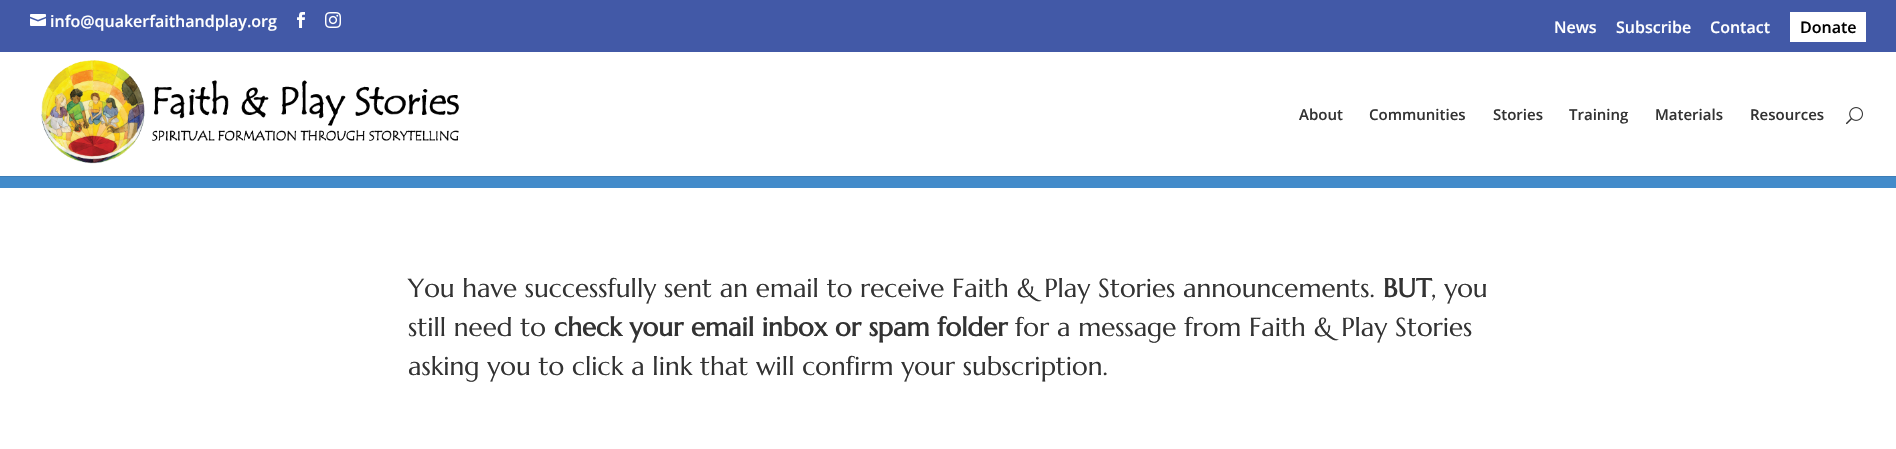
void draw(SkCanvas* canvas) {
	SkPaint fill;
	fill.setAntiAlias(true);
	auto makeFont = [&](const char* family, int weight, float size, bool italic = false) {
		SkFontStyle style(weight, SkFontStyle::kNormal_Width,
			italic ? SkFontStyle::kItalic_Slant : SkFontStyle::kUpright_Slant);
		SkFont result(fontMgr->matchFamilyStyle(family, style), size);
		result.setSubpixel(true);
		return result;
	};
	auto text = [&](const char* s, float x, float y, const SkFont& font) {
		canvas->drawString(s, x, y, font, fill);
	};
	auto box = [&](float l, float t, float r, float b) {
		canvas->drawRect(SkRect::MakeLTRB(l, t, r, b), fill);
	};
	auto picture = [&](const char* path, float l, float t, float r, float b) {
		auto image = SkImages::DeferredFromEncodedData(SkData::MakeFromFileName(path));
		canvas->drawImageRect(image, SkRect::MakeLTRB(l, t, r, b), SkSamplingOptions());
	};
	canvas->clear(0xFFFFFFFF);
	fill.setColor(0xFF4259A7);
	box(0, 0, 1896, 52);
	picture("image0.png", 30, 14, 46, 26);
	picture("image1.png", 297, 12, 305, 28);
	picture("image2.png", 325, 12, 341, 28);
	fill.setColor(0xFFFFFFFF);
	box(1790, 12, 1866, 42);
	fill.setColor(0xFF3C7DB6);
	box(0, 176, 1896, 177);
	picture("image3.png", 41, 60, 460, 164);
	picture("image4.png", 1846, 107, 1863, 125);
	fill.setColor(0xFF438BCA);
	box(0, 177, 1896, 188);
	auto font1 = makeFont("Open Sans", 600, 16);
	fill.setColor(0xFFFFFFFF);
	text("info@quakerfaithandplay.org", 50, 27, font1);
	text("News", 1554, 33, font1);
	text("Subscribe", 1616, 33, font1);
	text("Contact", 1710, 33, font1);
	fill.setColor(0xFF000000);
	text("Donate", 1800, 33, font1);
	auto font2 = makeFont("Open Sans", 600, 15);
	fill.setColor(0xFF333333);
	text("About", 1299, 120, font2);
	text("Communities", 1369, 120, font2);
	text("Stories", 1493, 120, font2);
	text("Training", 1569, 120, font2);
	text("Materials", 1655, 120, font2);
	text("Resources", 1750, 120, font2);
	auto font3 = makeFont("Marcellus", 400, 26);
	text("You have successfully sent an email to receive Faith & Play Stories announcements.", 408, 297, font3);
	auto font4 = makeFont("Marcellus", 700, 26);
	text("BUT", 1383, 297, font4);
	text(", you", 1431, 297, font3);
	text("still need to", 408, 336, font3);
	text("check your email inbox or spam folder", 554, 336, font4);
	text("for a message from Faith & Play Stories", 1015, 336, font3);
	text("asking you to click a link that will confirm your subscription.", 408, 375, font3);
}
